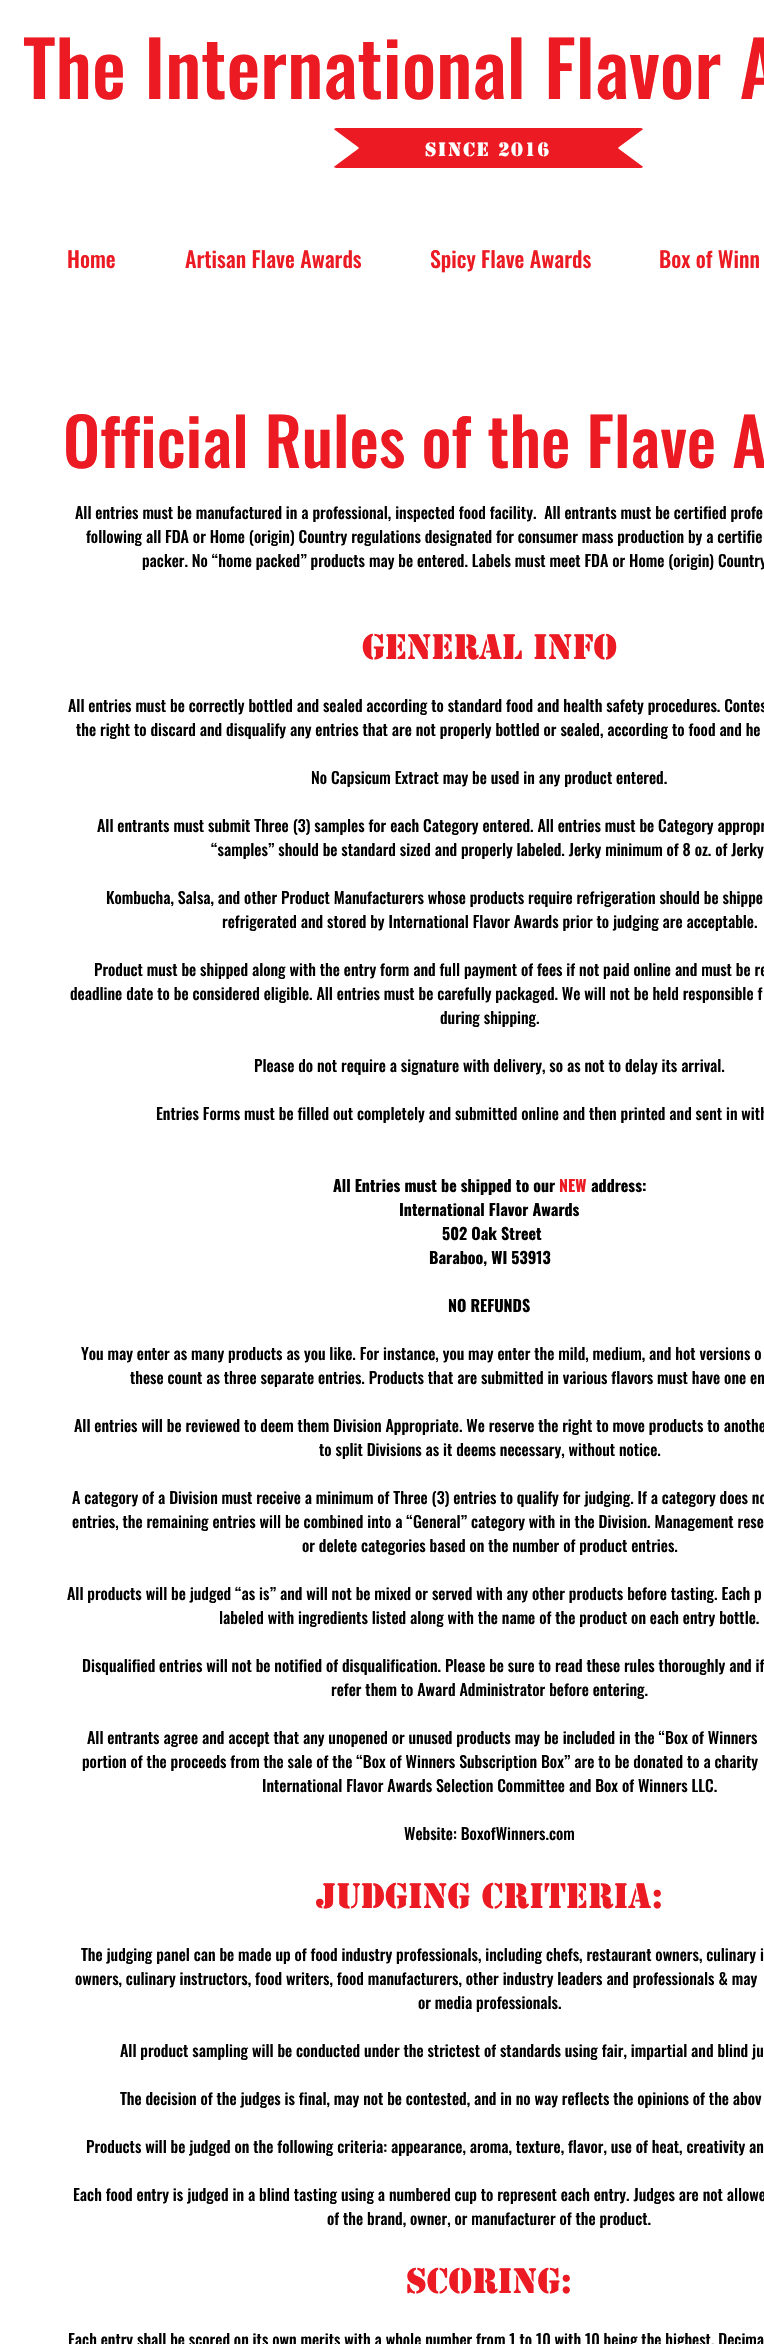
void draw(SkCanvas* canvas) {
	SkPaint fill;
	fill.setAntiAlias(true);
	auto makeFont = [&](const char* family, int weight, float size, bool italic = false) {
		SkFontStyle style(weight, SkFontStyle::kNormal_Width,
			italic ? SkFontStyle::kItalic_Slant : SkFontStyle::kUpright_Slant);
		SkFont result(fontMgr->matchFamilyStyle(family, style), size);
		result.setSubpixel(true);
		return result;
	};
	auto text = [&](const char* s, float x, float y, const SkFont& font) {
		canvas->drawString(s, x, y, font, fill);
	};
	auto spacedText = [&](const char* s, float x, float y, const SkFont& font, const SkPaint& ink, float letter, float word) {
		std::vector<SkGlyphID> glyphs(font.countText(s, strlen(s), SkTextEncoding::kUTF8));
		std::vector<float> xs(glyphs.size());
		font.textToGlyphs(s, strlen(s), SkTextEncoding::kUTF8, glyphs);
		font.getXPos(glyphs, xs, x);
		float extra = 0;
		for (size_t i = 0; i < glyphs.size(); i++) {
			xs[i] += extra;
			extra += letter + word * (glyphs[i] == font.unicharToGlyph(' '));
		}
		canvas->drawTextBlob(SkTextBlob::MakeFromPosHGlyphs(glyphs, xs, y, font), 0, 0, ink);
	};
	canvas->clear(0xFFFFFFFF);
	fill.setColor(0xFFEB1A23);
	canvas->drawPath(SkPathBuilder().moveTo(642, 130).cubicTo(644, 129, 642, 128, 640, 128).lineTo(337, 128).cubicTo(335, 128, 333, 129, 335, 130).lineTo(358, 147).cubicTo(359, 148, 359, 148, 358, 149).lineTo(335, 166).cubicTo(333, 167, 335, 168, 337, 168).lineTo(640, 168).cubicTo(642, 168, 644, 167, 642, 166).lineTo(619, 149).cubicTo(618, 148, 618, 148, 619, 147).close().detach(), fill);
	auto font1 = makeFont("Oswald", 500, 76);
	text("The International Flavor A", 23, 99, font1);
	auto font2 = makeFont("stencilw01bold", 700, 18);
	fill.setColor(0xFFFFFFFF);
	spacedText("Since 2016", 425, 156, font2, fill, 1.75f, 0);
	auto font3 = makeFont("Oswald", 500, 22);
	fill.setColor(0xFFEB1A23);
	text("Home", 67, 268, font3);
	text("Artisan Flave Awards", 185, 268, font3);
	text("Spicy Flave Awards", 430, 268, font3);
	text("Box of Winn", 659, 268, font3);
	auto font4 = makeFont("Oswald", 500, 66);
	text("Official Rules of the Flave A", 63, 468, font4);
	auto font5 = makeFont("Oswald", 500, 16);
	fill.setColor(0xFF000000);
	text("All entries must be manufactured in a professional, inspected food facility.  All entrants must be certified profe", 75, 519, font5);
	text("following all FDA or Home (origin) Country regulations designated for consumer mass production by a certifie", 86, 543, font5);
	text("packer. No “home packed” products may be entered. Labels must meet FDA or Home (origin) Country", 142, 567, font5);
	auto font6 = makeFont("stencilw01bold", 700, 33);
	fill.setColor(0xFFEB1A23);
	text("General Info", 362, 659, font6);
	fill.setColor(0xFF000000);
	text("All entries must be correctly bottled and sealed according to standard food and health safety procedures. Contes", 68, 712, font5);
	text("the right to discard and disqualify any entries that are not properly bottled or sealed, according to food and he", 76, 736, font5);
	text("No Capsicum Extract may be used in any product entered.", 311, 784, font5);
	text("All entrants must submit Three (3) samples for each Category entered. All entries must be Category appropr", 97, 832, font5);
	text("“samples” should be standard sized and properly labeled. Jerky minimum of 8 oz. of Jerky", 211, 856, font5);
	text("Kombucha, Salsa, and other Product Manufacturers whose products require refrigeration should be shippe", 106, 904, font5);
	text("refrigerated and stored by International Flavor Awards prior to judging are acceptable.", 222, 928, font5);
	text("Product must be shipped along with the entry form and full payment of fees if not paid online and must be re", 94, 976, font5);
	text("deadline date to be considered eligible. All entries must be carefully packaged. We will not be held responsible f", 70, 1000, font5);
	text("during shipping.", 440, 1024, font5);
	text("Please do not require a signature with delivery, so as not to delay its arrival.", 254, 1072, font5);
	text("Entries Forms must be filled out completely and submitted online and then printed and sent in with", 156, 1120, font5);
	auto font7 = makeFont("Oswald", 700, 16);
	text("All Entries must be shipped to our", 333, 1192, font7);
	fill.setColor(0xFFEB1A23);
	text("NEW", 559, 1192, font7);
	fill.setColor(0xFF000000);
	text("address:", 591, 1192, font7);
	text("International Flavor Awards", 399, 1216, font7);
	text("502 Oak Street", 442, 1240, font7);
	text("Baraboo, WI 53913", 429, 1264, font7);
	text("NO REFUNDS", 448, 1312, font7);
	text("You may enter as many products as you like. For instance, you may enter the mild, medium, and hot versions o", 81, 1360, font5);
	text("these count as three separate entries. Products that are submitted in various flavors must have one en", 130, 1384, font5);
	text("All entries will be reviewed to deem them Division Appropriate. We reserve the right to move products to anothe", 74, 1432, font5);
	text("to split Divisions as it deems necessary, without notice.", 319, 1456, font5);
	text("A category of a Division must receive a minimum of Three (3) entries to qualify for judging. If a category does no", 72, 1504, font5);
	text("entries, the remaining entries will be combined into a “General” category with in the Division. Management rese", 72, 1528, font5);
	text("or delete categories based on the number of product entries.", 302, 1552, font5);
	text("All products will be judged “as is” and will not be mixed or served with any other products before tasting. Each p", 67, 1600, font5);
	text("labeled with ingredients listed along with the name of the product on each entry bottle.", 219, 1624, font5);
	text("Disqualified entries will not be notified of disqualification. Please be sure to read these rules thoroughly and if", 82, 1672, font5);
	text("refer them to Award Administrator before entering.", 331, 1696, font5);
	text("All entrants agree and accept that any unopened or unused products may be included in the “Box of Winners", 87, 1744, font5);
	text("portion of the proceeds from the sale of the “Box of Winners Subscription Box” are to be donated to a charity", 82, 1768, font5);
	text("International Flavor Awards Selection Committee and Box of Winners LLC.", 262, 1792, font5);
	text("Website: BoxofWinners.com", 404, 1840, font5);
	fill.setColor(0xFFEB1A23);
	text("Judging Criteria:", 316, 1908, font6);
	fill.setColor(0xFF000000);
	text("The judging panel can be made up of food industry professionals, including chefs, restaurant owners, culinary i", 81, 1961, font5);
	text("owners, culinary instructors, food writers, food manufacturers, other industry leaders and professionals & may", 75, 1985, font5);
	text("or media professionals.", 418, 2009, font5);
	text("All product sampling will be conducted under the strictest of standards using fair, impartial and blind ju", 120, 2057, font5);
	text("The decision of the judges is final, may not be contested, and in no way reflects the opinions of the abov", 120, 2105, font5);
	text("Products will be judged on the following criteria: appearance, aroma, texture, flavor, use of heat, creativity an", 86, 2153, font5);
	text("Each food entry is judged in a blind tasting using a numbered cup to represent each entry. Judges are not allowe", 73, 2201, font5);
	text("of the brand, owner, or manufacturer of the product.", 327, 2225, font5);
	fill.setColor(0xFFEB1A23);
	text("Scoring:", 406, 2293, font6);
	fill.setColor(0xFF000000);
	text("Each entry shall be scored on its own merits with a whole number from 1 to 10 with 10 being the highest. Decima", 68, 2346, font5);
}
